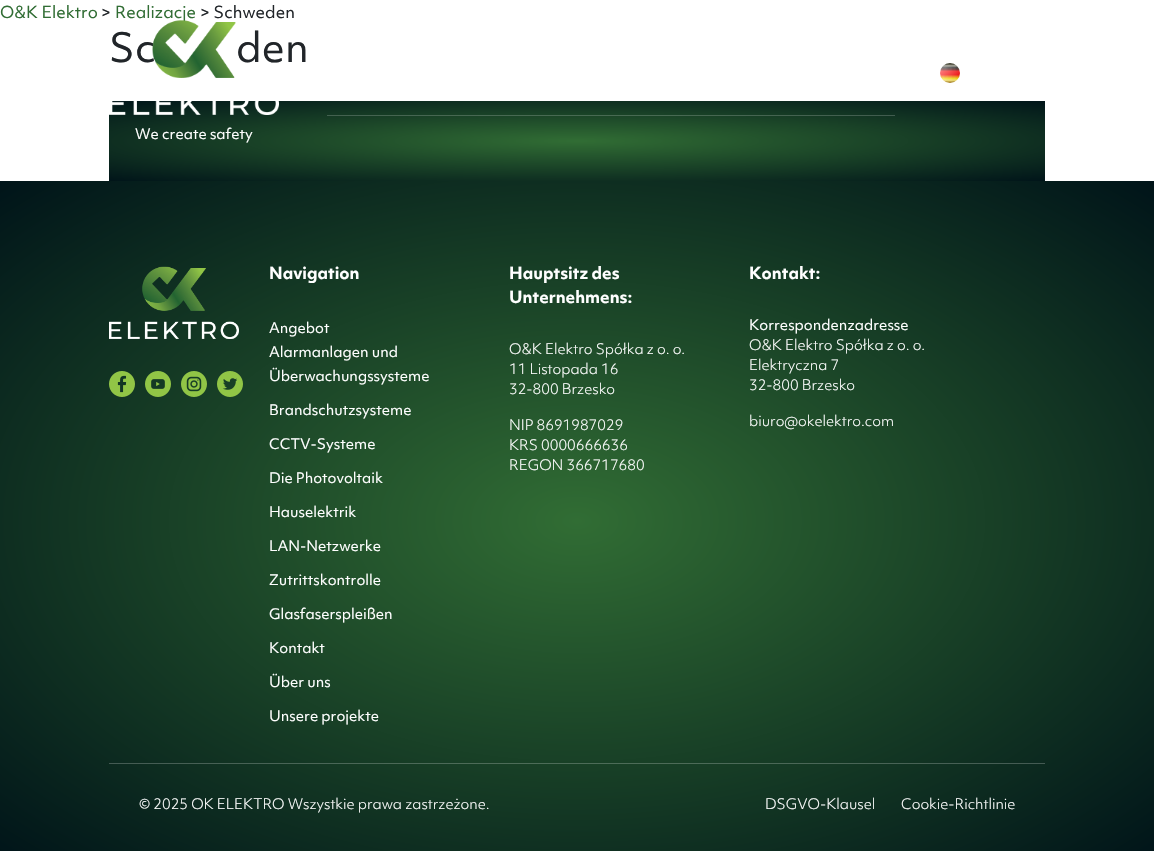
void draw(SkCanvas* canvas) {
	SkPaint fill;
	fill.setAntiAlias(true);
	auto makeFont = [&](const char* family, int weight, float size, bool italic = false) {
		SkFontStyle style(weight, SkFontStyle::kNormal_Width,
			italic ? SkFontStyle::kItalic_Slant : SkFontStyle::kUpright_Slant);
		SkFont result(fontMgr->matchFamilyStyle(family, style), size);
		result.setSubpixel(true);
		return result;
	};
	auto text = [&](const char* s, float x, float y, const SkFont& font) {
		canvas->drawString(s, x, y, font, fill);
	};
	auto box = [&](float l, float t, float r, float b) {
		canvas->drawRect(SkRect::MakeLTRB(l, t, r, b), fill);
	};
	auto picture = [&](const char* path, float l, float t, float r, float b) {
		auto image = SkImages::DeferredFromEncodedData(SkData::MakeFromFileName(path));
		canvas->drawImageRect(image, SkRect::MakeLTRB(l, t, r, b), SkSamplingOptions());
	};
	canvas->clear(0xFFFFFFFF);
	{
		const SkColor colors[] = {0xFF316D34, 0xFF001419};
		const float stops[] = {0, 1};
		SkMatrix m = SkMatrix::Translate(577, 141).preScale(662, 57);
		fill.setShader(SkGradientShader::MakeRadial({0, 0}, 1, colors, stops, 2, SkTileMode::kClamp, 0, &m));
		fill.setAlpha(255);
	}
	box(109, 101, 1045, 181);
	{
		const SkColor colors[] = {0xFF5A8A5D, 0xFF334347};
		const float stops[] = {0, 1};
		SkMatrix m = SkMatrix::Translate(577, 141).preScale(662, 57);
		fill.setShader(SkGradientShader::MakeRadial({0, 0}, 1, colors, stops, 2, SkTileMode::kClamp, 0, &m));
		fill.setAlpha(255);
	}
	box(781, 115, 895, 116);
	box(682, 115, 781, 116);
	box(426, 115, 545, 116);
	box(327, 115, 426, 116);
	picture("image0.png", 940, 63, 960, 83);
	fill.setShader(nullptr);
	fill.setColor(0xFF486A53);
	box(545, 115, 682, 116);
	{
		const SkColor colors[] = {0xFF316D34, 0xFF001419};
		const float stops[] = {0, 1};
		SkMatrix m = SkMatrix::Translate(577, 521).preScale(816, 480);
		fill.setShader(SkGradientShader::MakeRadial({0, 0}, 1, colors, stops, 2, SkTileMode::kClamp, 0, &m));
		fill.setAlpha(255);
	}
	box(0, 181, 1154, 851);
	{
		const SkColor colors[] = {0xFF608F63, 0xFF3B4A4E};
		const float stops[] = {0, 1};
		SkMatrix m = SkMatrix::Translate(577, 521).preScale(816, 480);
		fill.setShader(SkGradientShader::MakeRadial({0, 0}, 1, colors, stops, 2, SkTileMode::kClamp, 0, &m));
		fill.setAlpha(255);
	}
	box(109, 763, 1045, 764);
	picture("image2.png", 109, 266, 239, 339);
	picture("image3.png", 109, 371, 135, 397);
	picture("image4.png", 145, 371, 171, 397);
	picture("image5.png", 181, 371, 207, 397);
	picture("image6.png", 217, 371, 243, 397);
	auto font1 = makeFont("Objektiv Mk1", 400, 16);
	fill.setShader(nullptr);
	fill.setColor(0xFF316D34);
	text("O&K Elektro", 0, 18, font1);
	fill.setColor(0xFF212529);
	text(">", 101, 18, font1);
	fill.setColor(0xFF316D34);
	text("Realizacje", 115, 18, font1);
	fill.setColor(0xFF212529);
	text("> Schweden", 200, 18, font1);
	auto font2 = makeFont("Objektiv Mk1", 400, 39);
	text("Sc", 109, 62, font2);
	text("den", 236, 62, font2);
	picture("image1.png", 109, 20, 279, 115);
	auto font3 = makeFont("Objektiv Mk1", 400, 14);
	fill.setColor(0xFFFFFFFF);
	text("We create safety", 135, 139, font3);
	auto font4 = makeFont("Objektiv Mk1", 700, 16);
	text("Navigation", 269, 279, font4);
	text("Angebot", 269, 333, font3);
	text("Alarmanlagen und", 269, 357, font3);
	text("Überwachungssysteme", 269, 381, font3);
	text("Brandschutzsysteme", 269, 415, font3);
	text("CCTV-Systeme", 269, 449, font3);
	text("Die Photovoltaik", 269, 483, font3);
	text("Hauselektrik", 269, 517, font3);
	text("LAN-Netzwerke", 269, 551, font3);
	text("Zutrittskontrolle", 269, 585, font3);
	text("Glasfaserspleißen", 269, 619, font3);
	text("Kontakt", 269, 653, font3);
	text("Über uns", 269, 687, font3);
	text("Unsere projekte", 269, 721, font3);
	text("Hauptsitz des", 509, 279, font4);
	text("Unternehmens:", 509, 303, font4);
	auto font5 = makeFont("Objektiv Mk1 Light", 300, 14);
	text("O&K Elektro Spółka z o. o.", 509, 354, font5);
	text("11 Listopada 16", 509, 374, font5);
	text("32-800 Brzesko", 509, 394, font5);
	text("NIP 8691987029", 509, 430, font5);
	text("KRS 0000666636", 509, 450, font5);
	text("REGON 366717680", 509, 470, font5);
	text("Kontakt:", 749, 279, font4);
	text("Korrespondenzadresse", 749, 330, font3);
	text("O&K Elektro Spółka z o. o.", 749, 350, font5);
	text("Elektryczna 7", 749, 370, font5);
	text("32-800 Brzesko", 749, 390, font5);
	text("biuro@okelektro.com", 749, 426, font5);
	text("© 2025 OK ELEKTRO Wszystkie prawa zastrzeżone.", 139, 809, font5);
	text("DSGVO-Klausel", 765, 809, font5);
	text("Cookie-Richtlinie", 901, 809, font5);
}
